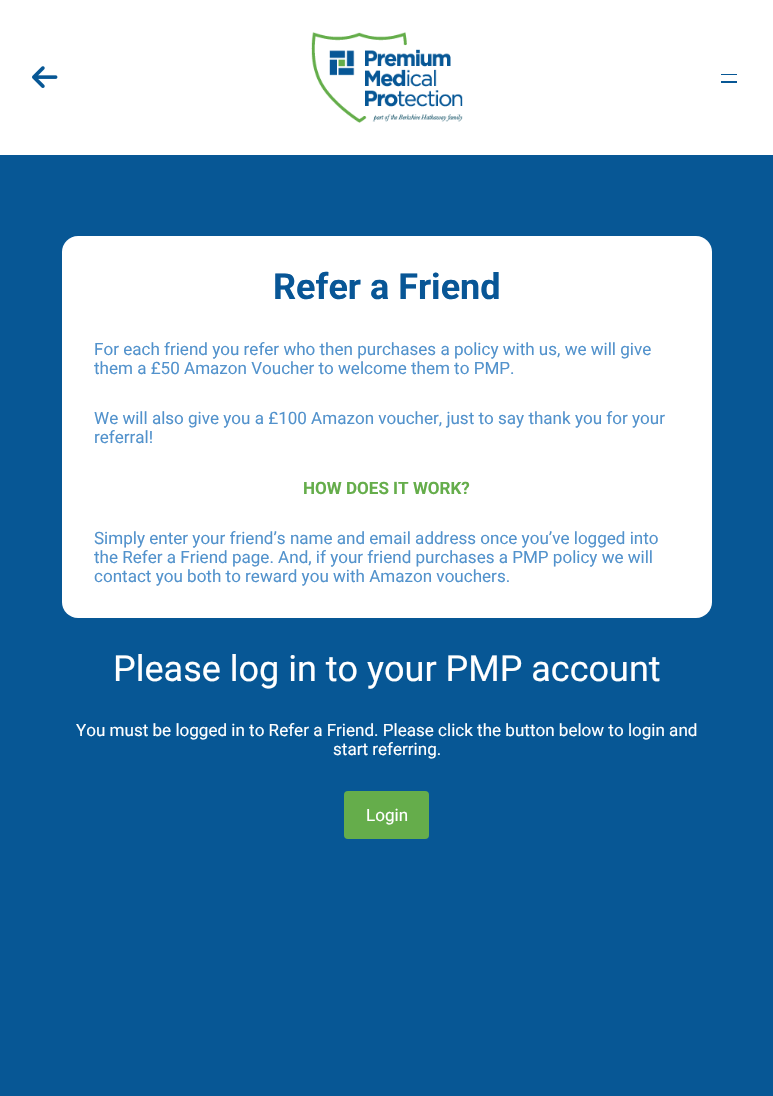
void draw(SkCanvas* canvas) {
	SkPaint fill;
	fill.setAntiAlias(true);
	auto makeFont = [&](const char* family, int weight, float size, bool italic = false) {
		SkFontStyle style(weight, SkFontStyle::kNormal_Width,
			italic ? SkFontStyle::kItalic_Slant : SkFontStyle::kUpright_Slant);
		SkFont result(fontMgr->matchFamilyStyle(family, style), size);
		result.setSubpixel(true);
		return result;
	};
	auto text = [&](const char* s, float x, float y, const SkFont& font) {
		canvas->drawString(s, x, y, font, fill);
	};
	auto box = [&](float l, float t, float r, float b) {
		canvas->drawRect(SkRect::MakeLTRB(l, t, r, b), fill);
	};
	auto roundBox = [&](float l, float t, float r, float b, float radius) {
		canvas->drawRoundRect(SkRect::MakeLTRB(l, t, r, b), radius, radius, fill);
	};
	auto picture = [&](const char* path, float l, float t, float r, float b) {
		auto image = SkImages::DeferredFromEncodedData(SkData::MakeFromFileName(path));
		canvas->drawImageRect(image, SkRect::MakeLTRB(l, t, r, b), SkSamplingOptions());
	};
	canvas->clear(0xFFFFFFFF);
	picture("image0.png", 32, 66, 58, 88);
	picture("image1.png", 311, 32, 463, 123);
	fill.setColor(0xFF075795);
	box(721, 74, 737, 75);
	box(721, 81, 737, 83);
	box(0, 155, 773, 1096);
	fill.setColor(0xFFFFFFFF);
	roundBox(62, 236, 712, 618, 16);
	fill.setColor(0xFF65AD4B);
	roundBox(344, 791, 429, 839, 4);
	auto font1 = makeFont("Roboto", 700, 36);
	fill.setColor(0xFF085696);
	text("Refer a Friend", 273, 299, font1);
	auto font2 = makeFont("Roboto", 400, 17.05f);
	fill.setColor(0xFF5292CC);
	text("For each friend you refer who then purchases a policy with us, we will give", 94, 355, font2);
	text("them a £50 Amazon Voucher to welcome them to PMP.", 94, 374, font2);
	text("We will also give you a £100 Amazon voucher, just to say thank you for your", 94, 424, font2);
	text("referral!", 94, 443, font2);
	auto font3 = makeFont("Roboto", 700, 17.05f);
	fill.setColor(0xFF65AD4B);
	text("HOW DOES IT WORK?", 303, 494, font3);
	fill.setColor(0xFF5292CC);
	text("Simply enter your friend’s name and email address once you’ve logged into", 94, 544, font2);
	text("the Refer a Friend page. And, if your friend purchases a PMP policy we will", 94, 563, font2);
	text("contact you both to reward you with Amazon vouchers.", 94, 582, font2);
	auto font4 = makeFont("Roboto", 400, 36);
	fill.setColor(0xFFFFFFFF);
	text("Please log in to your PMP account", 113, 681, font4);
	text("You must be logged in to Refer a Friend. Please click the button below to login and", 76, 736, font2);
	text("start referring.", 333, 755, font2);
	text("Login", 366, 821, font2);
}
